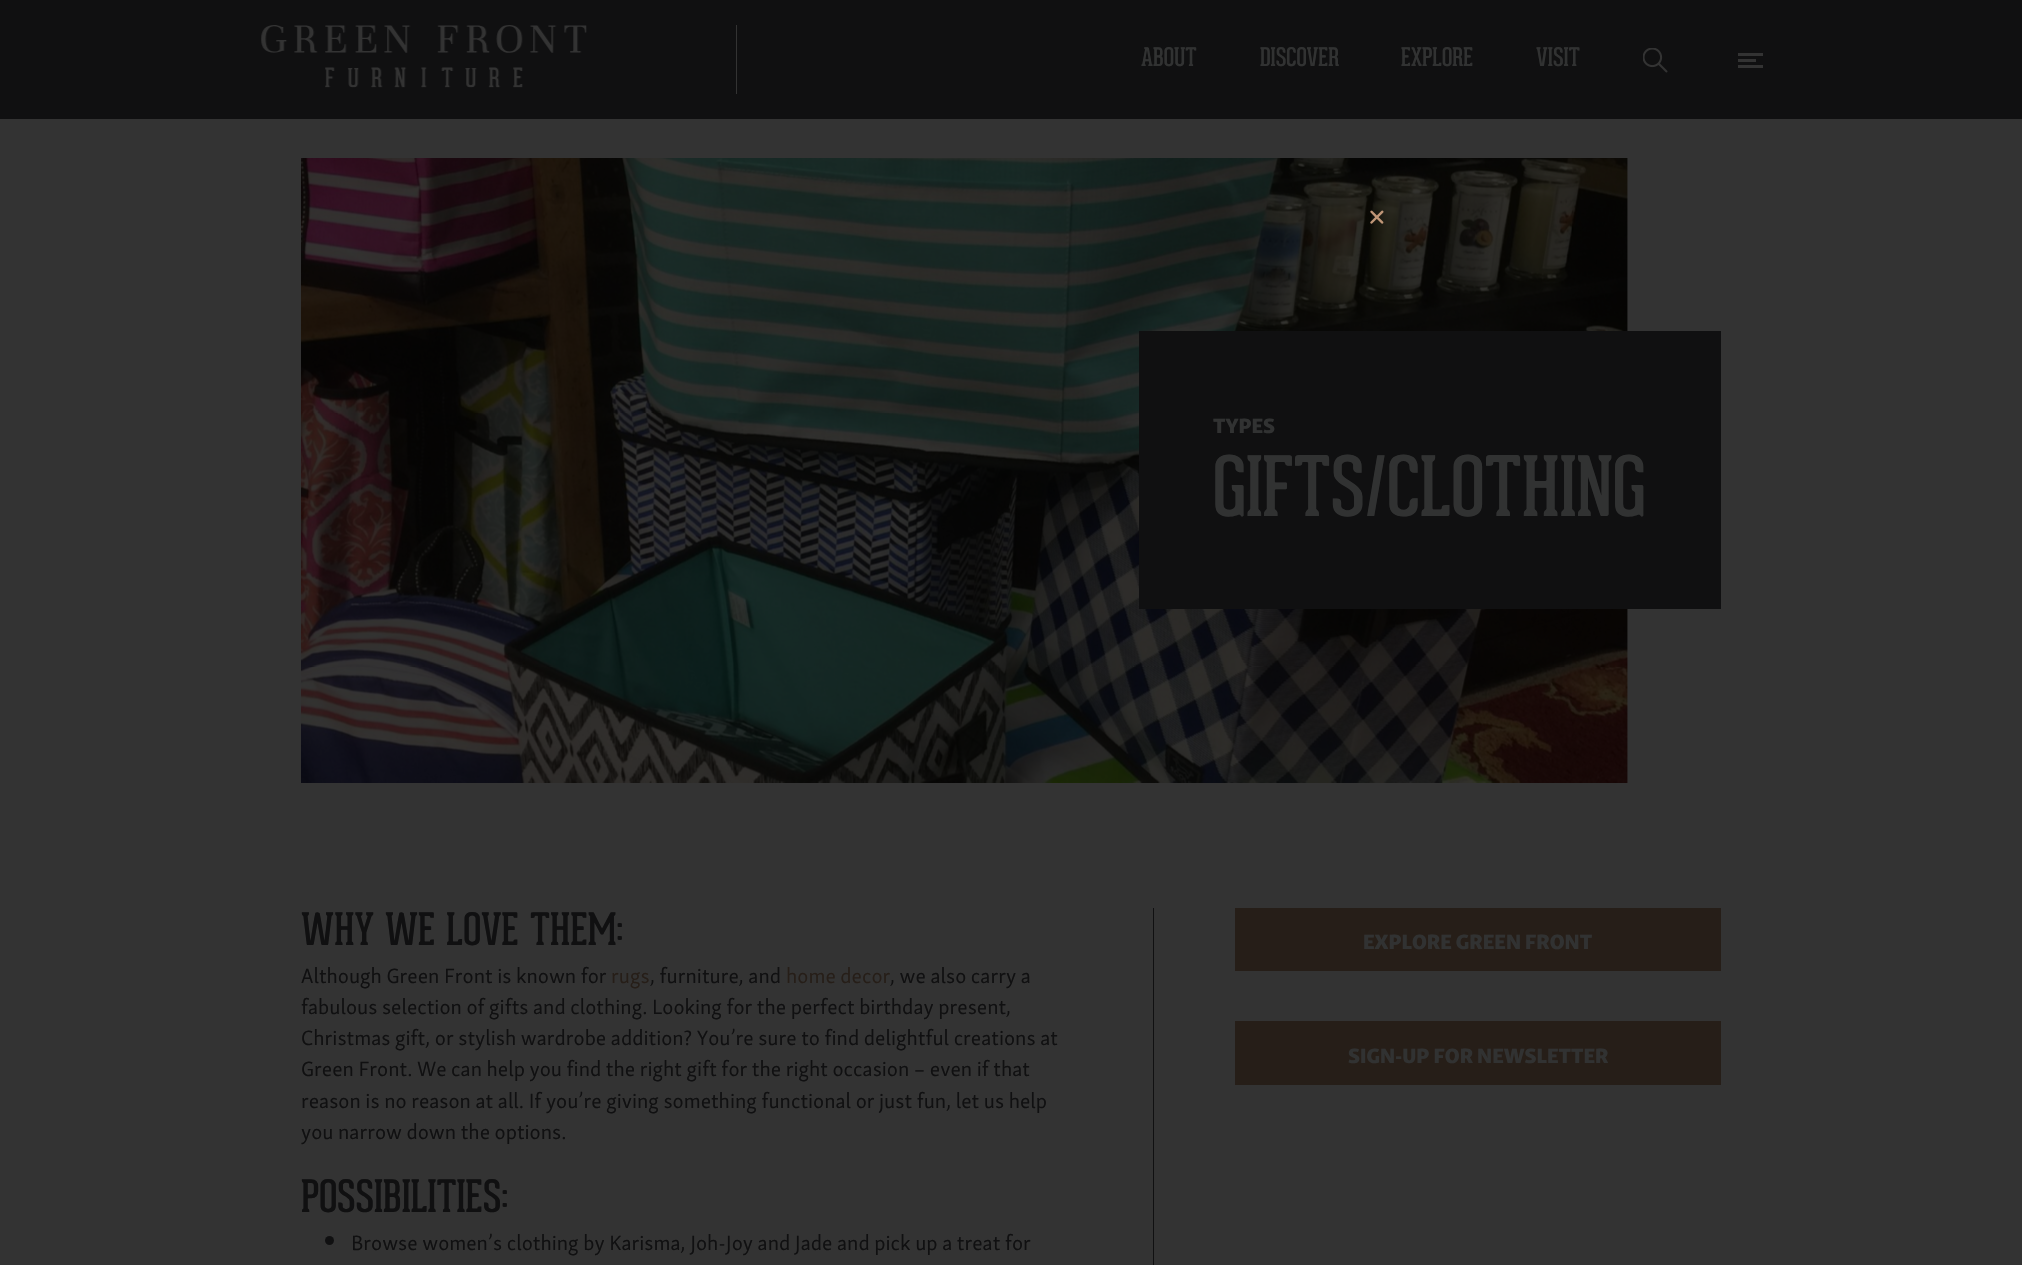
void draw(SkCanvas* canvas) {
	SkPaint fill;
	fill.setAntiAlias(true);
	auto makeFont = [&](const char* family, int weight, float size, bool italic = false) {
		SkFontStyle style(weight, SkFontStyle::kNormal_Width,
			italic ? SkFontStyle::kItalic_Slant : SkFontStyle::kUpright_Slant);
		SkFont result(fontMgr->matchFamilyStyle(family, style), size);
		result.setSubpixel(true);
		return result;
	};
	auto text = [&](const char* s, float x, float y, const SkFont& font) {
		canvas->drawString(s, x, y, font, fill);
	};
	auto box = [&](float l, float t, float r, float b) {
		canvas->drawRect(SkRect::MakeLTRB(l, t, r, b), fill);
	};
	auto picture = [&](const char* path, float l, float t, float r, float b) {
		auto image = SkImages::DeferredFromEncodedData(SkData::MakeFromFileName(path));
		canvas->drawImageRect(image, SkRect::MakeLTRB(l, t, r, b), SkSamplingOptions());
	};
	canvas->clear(0xFF333333);
	fill.setColor(0xFF101011);
	box(0, 0, 2022, 119);
	fill.setColor(0xFF333333);
	box(736, 25, 737, 94);
	picture("image0.png", 261, 25, 587, 88);
	picture("image1.png", 1643, 48, 1668, 73);
	box(1738, 59, 1756, 62);
	box(1738, 53, 1763, 56);
	box(1738, 65, 1763, 68);
	picture("image3.png", 301, 158, 1628, 783);
	picture("image2.png", 1370, 210, 1384, 224);
	fill.setColor(0xFF101011);
	box(1139, 331, 1721, 609);
	box(1153, 908, 1154, 1265);
	canvas->drawCircle(329.5f, 1240.5f, 4.5f, fill);
	fill.setColor(0xFF261E18);
	box(1235, 908, 1721, 971);
	box(1235, 1021, 1721, 1085);
	auto font1 = makeFont("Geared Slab", 400, 25);
	fill.setColor(0xFF313232);
	text("ABOUT", 1141, 66, font1);
	text("DISCOVER", 1260, 66, font1);
	text("EXPLORE", 1401, 66, font1);
	text("VISIT", 1536, 66, font1);
	auto font2 = makeFont("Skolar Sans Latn", 800, 21.25f);
	text("TYPES", 1213, 433, font2);
	auto font3 = makeFont("Geared Slab", 400, 81.25f);
	text("GIFTS/CLOTHING", 1213, 516, font3);
	auto font4 = makeFont("Geared Slab", 400, 43.75f);
	fill.setColor(0xFF101011);
	text("WHY WE LOVE THEM:", 301, 945, font4);
	auto font5 = makeFont("Skolar Sans Latn", 400, 21.25f);
	text("Although Green Front is known for", 301, 983, font5);
	fill.setColor(0xFF261E18);
	text("rugs", 611, 983, font5);
	fill.setColor(0xFF101011);
	text(", furniture, and", 650, 983, font5);
	fill.setColor(0xFF261E18);
	text("home decor", 786, 983, font5);
	fill.setColor(0xFF101011);
	text(", we also carry a", 890, 983, font5);
	text("fabulous selection of gifts and clothing. Looking for the perfect birthday present,", 301, 1014, font5);
	text("Christmas gift, or stylish wardrobe addition? You’re sure to find delightful creations at", 301, 1045, font5);
	text("Green Front. We can help you find the right gift for the right occasion – even if that", 301, 1076, font5);
	text("reason is no reason at all. If you’re giving something functional or just fun, let us help", 301, 1108, font5);
	text("you narrow down the options.", 301, 1139, font5);
	text("POSSIBILITIES:", 301, 1212, font4);
	text("Browse women’s clothing by Karisma, Joh-Joy and Jade and pick up a treat for", 351, 1250, font5);
	fill.setColor(0xFF313232);
	text("EXPLORE GREEN FRONT", 1363, 949, font2);
	text("SIGN-UP FOR NEWSLETTER", 1348, 1063, font2);
}
